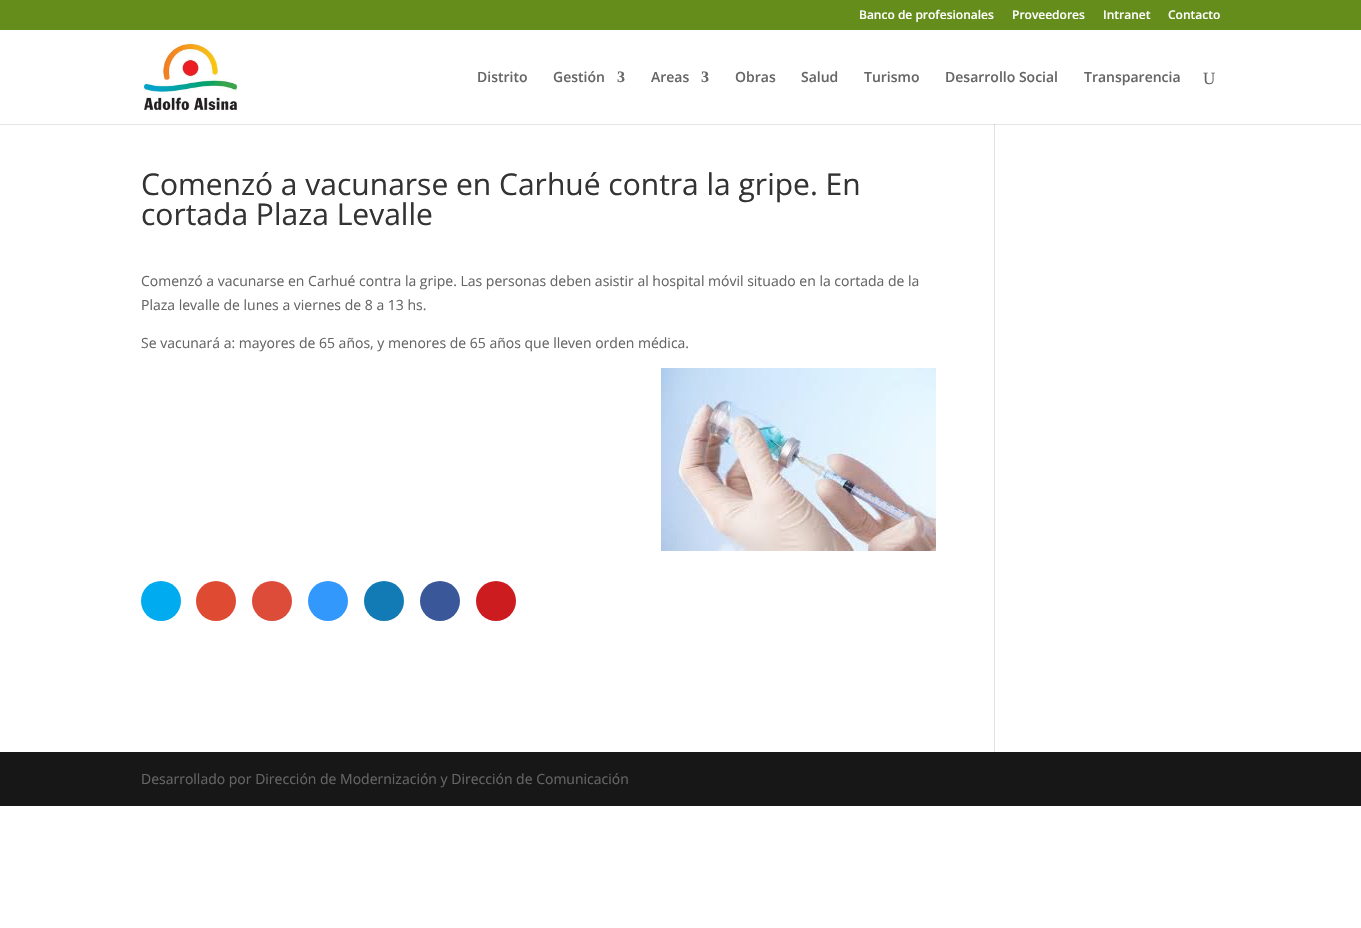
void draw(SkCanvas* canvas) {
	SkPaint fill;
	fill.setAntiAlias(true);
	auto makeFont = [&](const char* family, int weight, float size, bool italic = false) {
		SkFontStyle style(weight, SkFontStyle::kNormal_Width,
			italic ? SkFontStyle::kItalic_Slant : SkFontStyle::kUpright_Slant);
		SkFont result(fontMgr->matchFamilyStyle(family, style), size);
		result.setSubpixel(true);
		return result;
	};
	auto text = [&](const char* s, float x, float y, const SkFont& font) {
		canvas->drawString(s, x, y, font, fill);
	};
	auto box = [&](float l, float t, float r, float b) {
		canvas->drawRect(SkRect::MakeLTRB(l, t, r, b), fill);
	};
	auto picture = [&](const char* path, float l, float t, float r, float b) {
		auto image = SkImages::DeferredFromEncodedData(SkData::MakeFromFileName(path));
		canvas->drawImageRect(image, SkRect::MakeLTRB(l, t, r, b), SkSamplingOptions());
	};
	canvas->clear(0xFFFFFFFF);
	fill.setColor(0xFFE6E6E6);
	box(0, 124, 1361, 125);
	fill.setColor(0xFF658D1B);
	box(0, 0, 1361, 30);
	picture("image0.png", 144, 44, 237, 110);
	picture("image1.png", 661, 368, 936, 551);
	fill.setColor(0xFF00ABF0);
	canvas->drawCircle(161, 601, 20, fill);
	fill.setColor(0xFFDF4A32);
	canvas->drawCircle(216, 601, 20, fill);
	fill.setColor(0xFFDD4B39);
	canvas->drawCircle(272, 601, 20, fill);
	fill.setColor(0xFF3398FC);
	canvas->drawCircle(328, 601, 20, fill);
	fill.setColor(0xFF127BB6);
	canvas->drawCircle(384, 601, 20, fill);
	fill.setColor(0xFF3A579A);
	canvas->drawCircle(440, 601, 20, fill);
	fill.setColor(0xFFCD1C1F);
	canvas->drawCircle(496, 601, 20, fill);
	fill.setColor(0xFFE2E2E2);
	box(994, 125, 995, 752);
	fill.setColor(0xFFCBCBCB);
	box(994, 124, 995, 125);
	fill.setColor(0xFF171717);
	box(0, 752, 1361, 806);
	auto font1 = makeFont("Open Sans", 600, 12);
	fill.setColor(0xFFFFFFFF);
	text("Banco de profesionales", 859, 19, font1);
	text("Proveedores", 1012, 19, font1);
	text("Intranet", 1103, 19, font1);
	text("Contacto", 1168, 19, font1);
	auto font2 = makeFont("Open Sans", 600, 14);
	fill.setColor(0xFF666666);
	text("Distrito", 477, 82, font2);
	text("Gestión", 553, 82, font2);
	auto font3 = makeFont("Liberation Serif", 700, 16);
	text("3", 617, 82, font3);
	text("Areas", 651, 82, font2);
	text("3", 701, 82, font3);
	text("Obras", 735, 82, font2);
	text("Salud", 801, 82, font2);
	text("Turismo", 864, 82, font2);
	text("Desarrollo Social", 945, 82, font2);
	text("Transparencia", 1084, 82, font2);
	auto font4 = makeFont("Liberation Serif", 400, 17);
	text("U", 1203, 84, font4);
	auto font5 = makeFont("Open Sans", 400, 30);
	fill.setColor(0xFF333333);
	text("Comenzó a vacunarse en Carhué contra la gripe. En", 141, 195, font5);
	text("cortada Plaza Levalle", 141, 225, font5);
	auto font6 = makeFont("Open Sans", 400, 14);
	fill.setColor(0xFF666666);
	text("Comenzó a vacunarse en Carhué contra la gripe. Las personas deben asistir al hospital móvil situado en la cortada de la", 141, 286, font6);
	text("Plaza levalle de lunes a viernes de 8 a 13 hs.", 141, 310, font6);
	text("Se vacunará a: mayores de 65 años, y menores de 65 años que lleven orden médica.", 141, 348, font6);
	text("Desarrollado por Dirección de Modernización y Dirección de Comunicación", 141, 784, font6);
}
